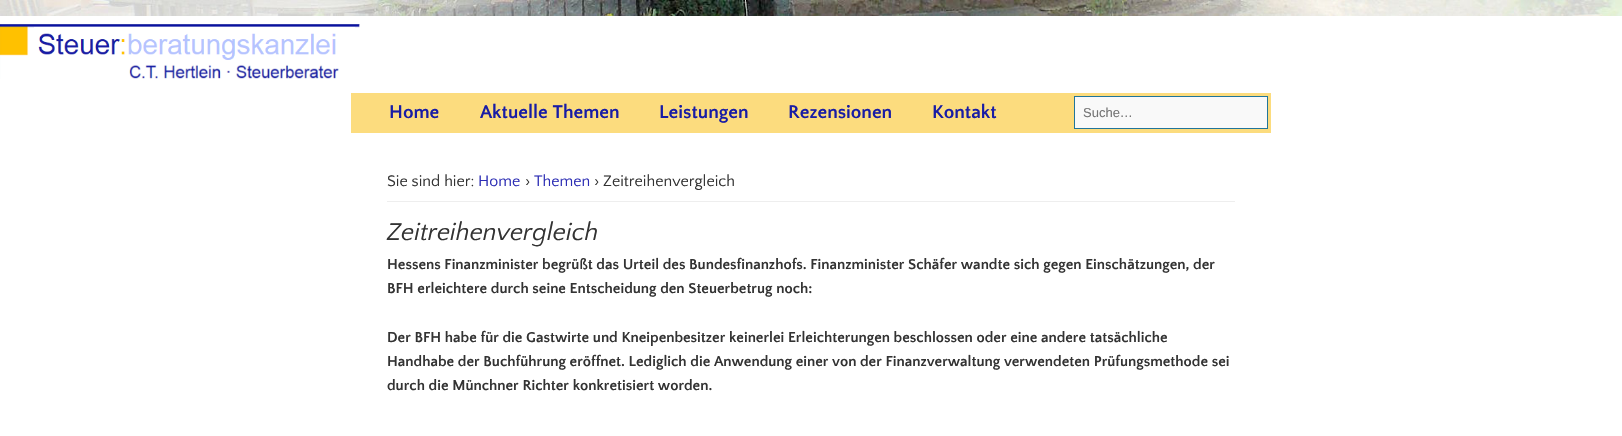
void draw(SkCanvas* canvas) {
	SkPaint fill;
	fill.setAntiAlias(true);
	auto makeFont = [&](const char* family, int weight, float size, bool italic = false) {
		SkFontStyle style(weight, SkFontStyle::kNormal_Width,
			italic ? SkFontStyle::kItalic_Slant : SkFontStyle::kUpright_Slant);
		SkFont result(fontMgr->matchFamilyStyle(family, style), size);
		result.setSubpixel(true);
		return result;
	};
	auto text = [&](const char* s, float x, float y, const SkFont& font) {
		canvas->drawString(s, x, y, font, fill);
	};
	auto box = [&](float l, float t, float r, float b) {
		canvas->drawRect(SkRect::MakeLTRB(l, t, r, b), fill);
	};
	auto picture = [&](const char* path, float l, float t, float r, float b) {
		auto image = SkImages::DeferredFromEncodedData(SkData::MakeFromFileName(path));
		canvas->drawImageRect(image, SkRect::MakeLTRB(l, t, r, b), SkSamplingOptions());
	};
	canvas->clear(0xFFFFFFFF);
	picture("image0.png", 0, 0, 1622, 16);
	picture("image1.png", 0, 24, 360, 79);
	fill.setColor(0xFFFCDC7E);
	box(351, 93, 1271, 133);
	fill.setColor(0xFFF9F9F9);
	canvas->drawRect(SkRect::MakeLTRB(1074.5f, 96.5f, 1267.5f, 128.5f), fill);
	fill.setStyle(SkPaint::kStroke_Style);
	fill.setStrokeWidth(1);
	fill.setColor(0xFF21759B);
	canvas->drawRect(SkRect::MakeLTRB(1074.5f, 96.5f, 1267.5f, 128.5f), fill);
	fill.setStyle(SkPaint::kFill_Style);
	fill.setColor(0xFFEEEEEE);
	box(387, 201, 1235, 202);
	auto font1 = makeFont("Quattrocento Sans", 700, 19.25f);
	fill.setColor(0xFF181CA5);
	text("Home", 389, 118, font1);
	text("Aktuelle Themen", 480, 118, font1);
	text("Leistungen", 659, 118, font1);
	text("Rezensionen", 788, 118, font1);
	text("Kontakt", 932, 118, font1);
	auto font2 = makeFont("Liberation Sans", 400, 13);
	fill.setColor(0xFF757575);
	text("Suche…", 1083, 117, font2);
	auto font3 = makeFont("Quattrocento Sans", 400, 16);
	fill.setColor(0xFF333333);
	text("Sie sind hier:", 387, 186, font3);
	fill.setColor(0xFF2C2DB4);
	text("Home", 478, 186, font3);
	fill.setColor(0xFF333333);
	text("›", 525, 186, font3);
	fill.setColor(0xFF2C2DB4);
	text("Themen", 534, 186, font3);
	fill.setColor(0xFF333333);
	text("› Zeitreihenvergleich", 594, 186, font3);
	auto font4 = makeFont("Quattrocento Sans", 400, 25.5f, true);
	text("Zeitreihenvergleich", 387, 240, font4);
	auto font5 = makeFont("Quattrocento Sans", 700, 15);
	text("Hessens Finanzminister begrüßt das Urteil des Bundesfinanzhofs. Finanzminister Schäfer wandte sich gegen Einschätzungen, der", 387, 269, font5);
	text("BFH erleichtere durch seine Entscheidung den Steuerbetrug noch:", 387, 293, font5);
	text("Der BFH habe für die Gastwirte und Kneipenbesitzer keinerlei Erleichterungen beschlossen oder eine andere tatsächliche", 387, 342, font5);
	text("Handhabe der Buchführung eröffnet. Lediglich die Anwendung einer von der Finanzverwaltung verwendeten Prüfungsmethode sei", 387, 366, font5);
	text("durch die Münchner Richter konkretisiert worden.", 387, 390, font5);
}
